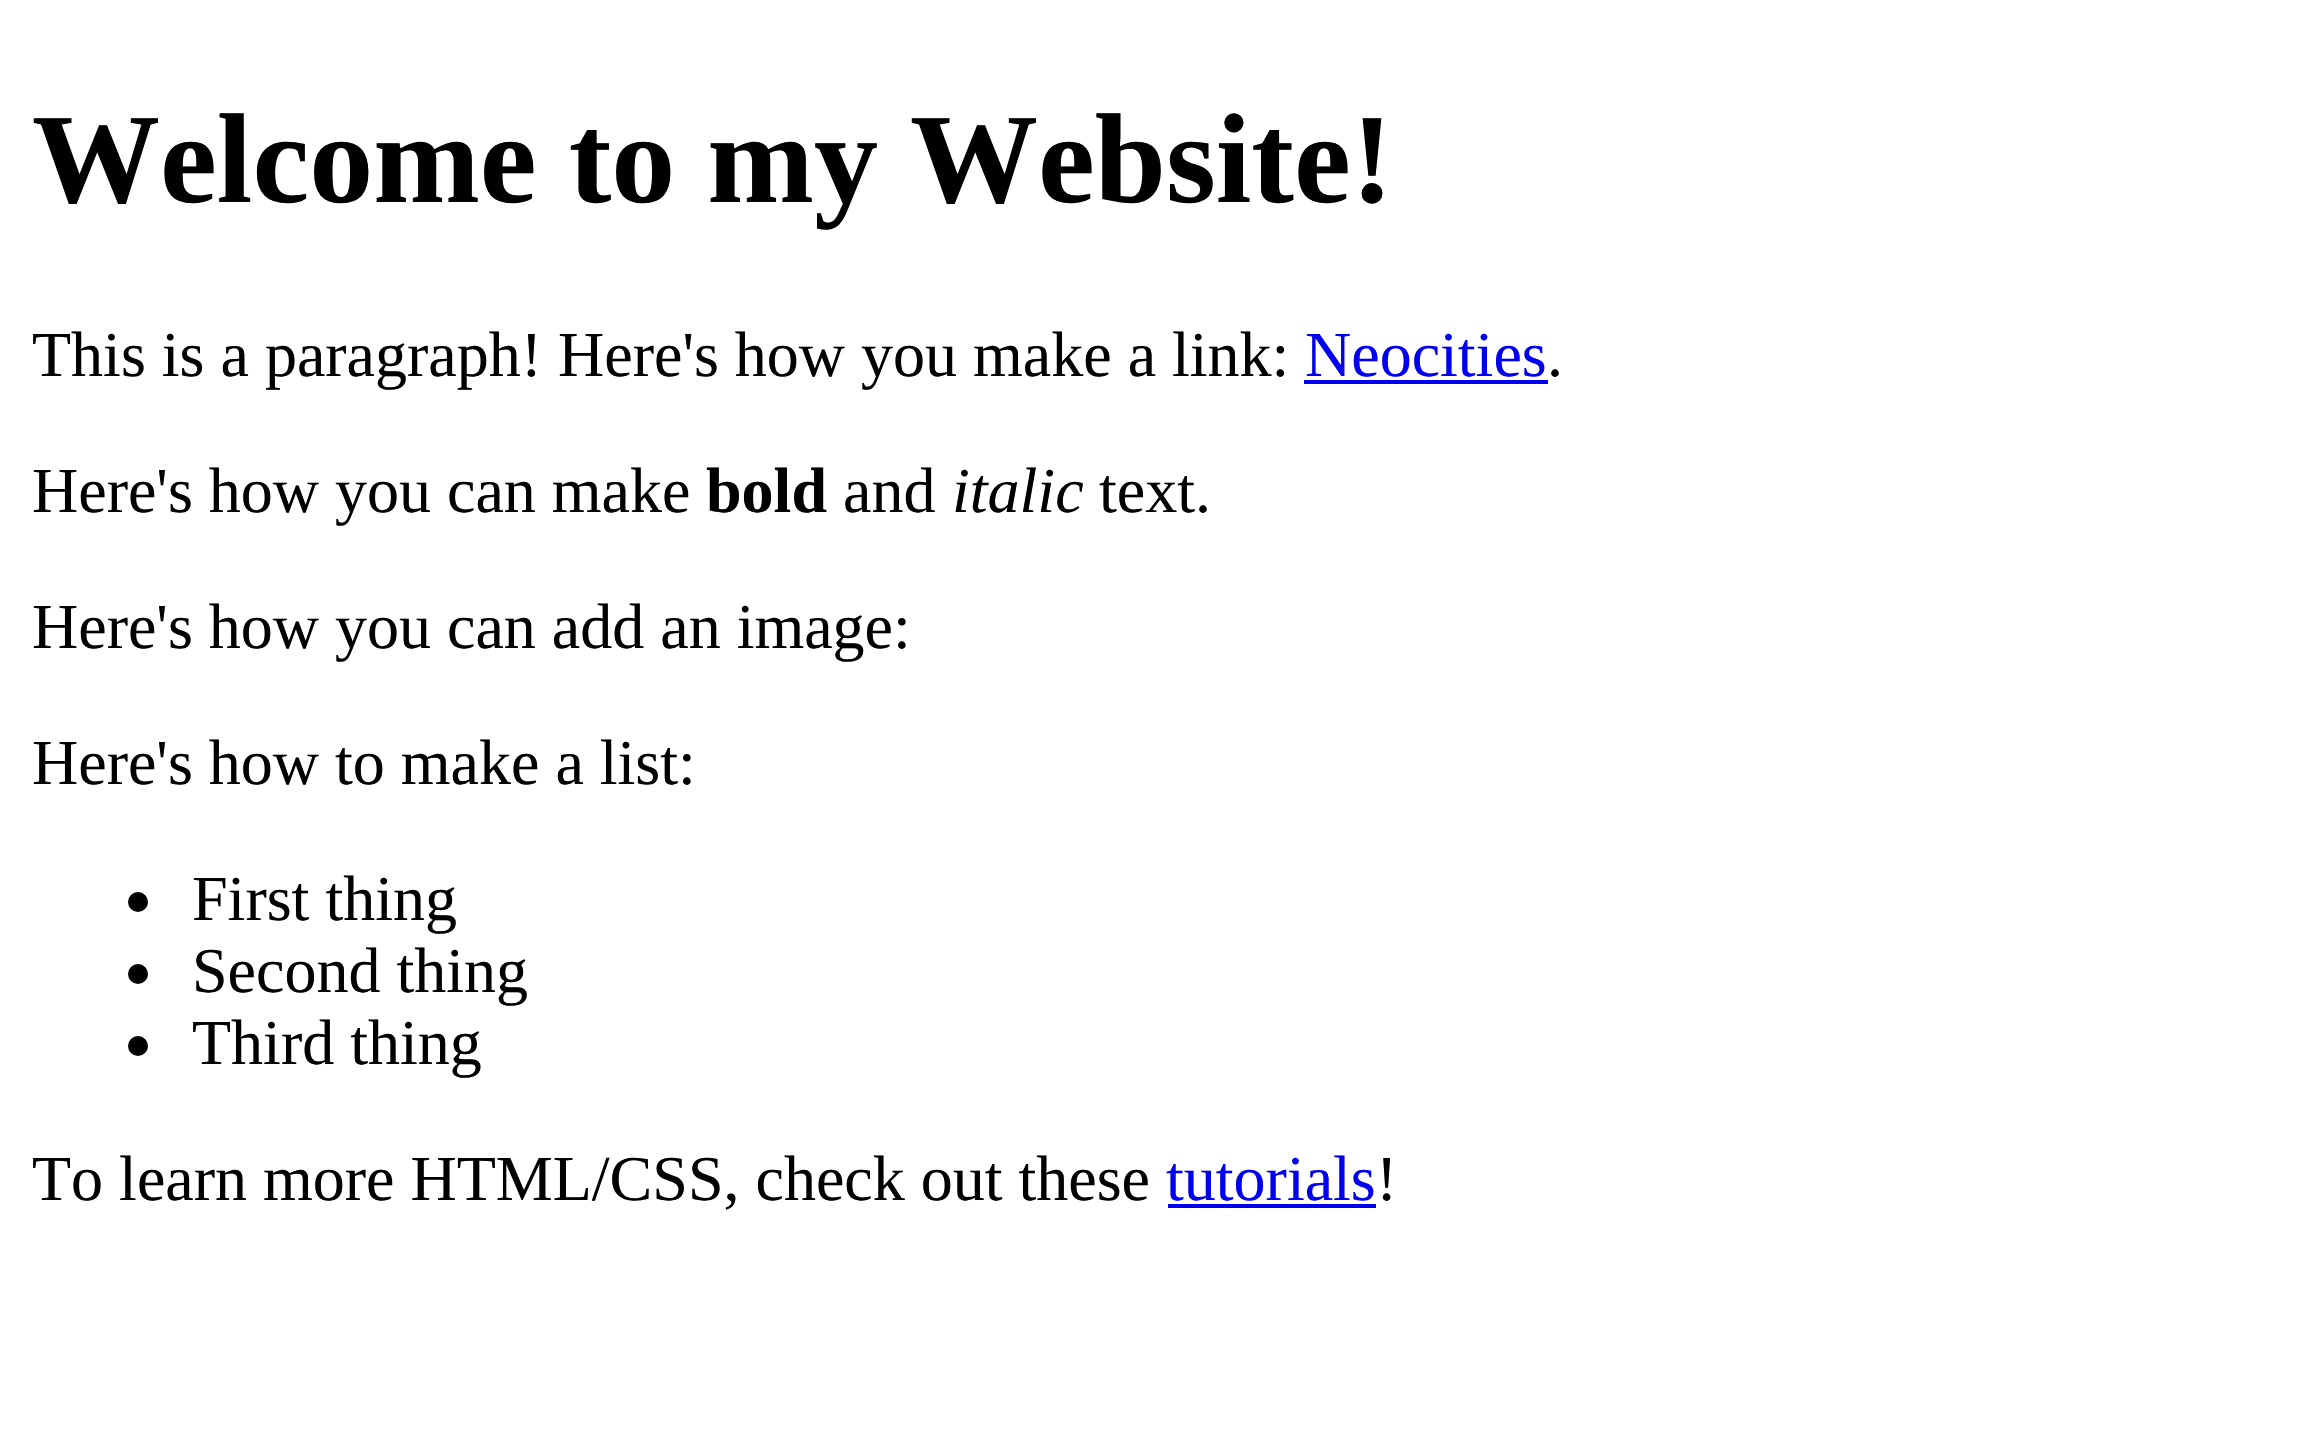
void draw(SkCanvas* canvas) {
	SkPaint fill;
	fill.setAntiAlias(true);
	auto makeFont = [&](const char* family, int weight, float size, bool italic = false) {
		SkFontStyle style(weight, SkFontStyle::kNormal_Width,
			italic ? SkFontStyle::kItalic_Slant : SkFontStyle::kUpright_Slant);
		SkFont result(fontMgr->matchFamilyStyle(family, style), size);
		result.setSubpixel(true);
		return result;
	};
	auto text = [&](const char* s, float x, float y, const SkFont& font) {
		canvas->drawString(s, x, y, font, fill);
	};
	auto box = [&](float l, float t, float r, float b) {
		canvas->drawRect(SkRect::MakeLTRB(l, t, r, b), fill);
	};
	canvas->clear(0xFFFFFFFF);
	fill.setColor(0xFF0000EE);
	box(1304, 380, 1548, 384);
	fill.setColor(0xFF000000);
	canvas->drawCircle(138, 902, 10, fill);
	canvas->drawCircle(138, 974, 10, fill);
	canvas->drawCircle(138, 1046, 10, fill);
	fill.setColor(0xFF0000EE);
	box(1168, 1204, 1376, 1208);
	auto font1 = makeFont("Liberation Serif", 700, 128);
	fill.setColor(0xFF000000);
	text("Welcome to my Website!", 32, 202, font1);
	auto font2 = makeFont("Liberation Serif", 400, 64);
	text("This is a paragraph! Here's how you make a link:", 32, 376, font2);
	fill.setColor(0xFF0000EE);
	text("Neocities", 1305, 376, font2);
	fill.setColor(0xFF000000);
	text(".", 1547, 376, font2);
	text("Here's how you can make", 32, 512, font2);
	auto font3 = makeFont("Liberation Serif", 700, 64);
	text("bold", 706, 512, font3);
	text("and", 843, 512, font2);
	auto font4 = makeFont("Liberation Serif", 400, 64, true);
	text("italic", 952, 512, font4);
	text("text.", 1099, 512, font2);
	text("Here's how you can add an image:", 32, 648, font2);
	text("Here's how to make a list:", 32, 784, font2);
	text("First thing", 192, 920, font2);
	text("Second thing", 192, 992, font2);
	text("Third thing", 192, 1064, font2);
	text("To learn more HTML/CSS, check out these", 32, 1200, font2);
	fill.setColor(0xFF0000EE);
	text("tutorials", 1166, 1200, font2);
	fill.setColor(0xFF000000);
	text("!", 1376, 1200, font2);
}
